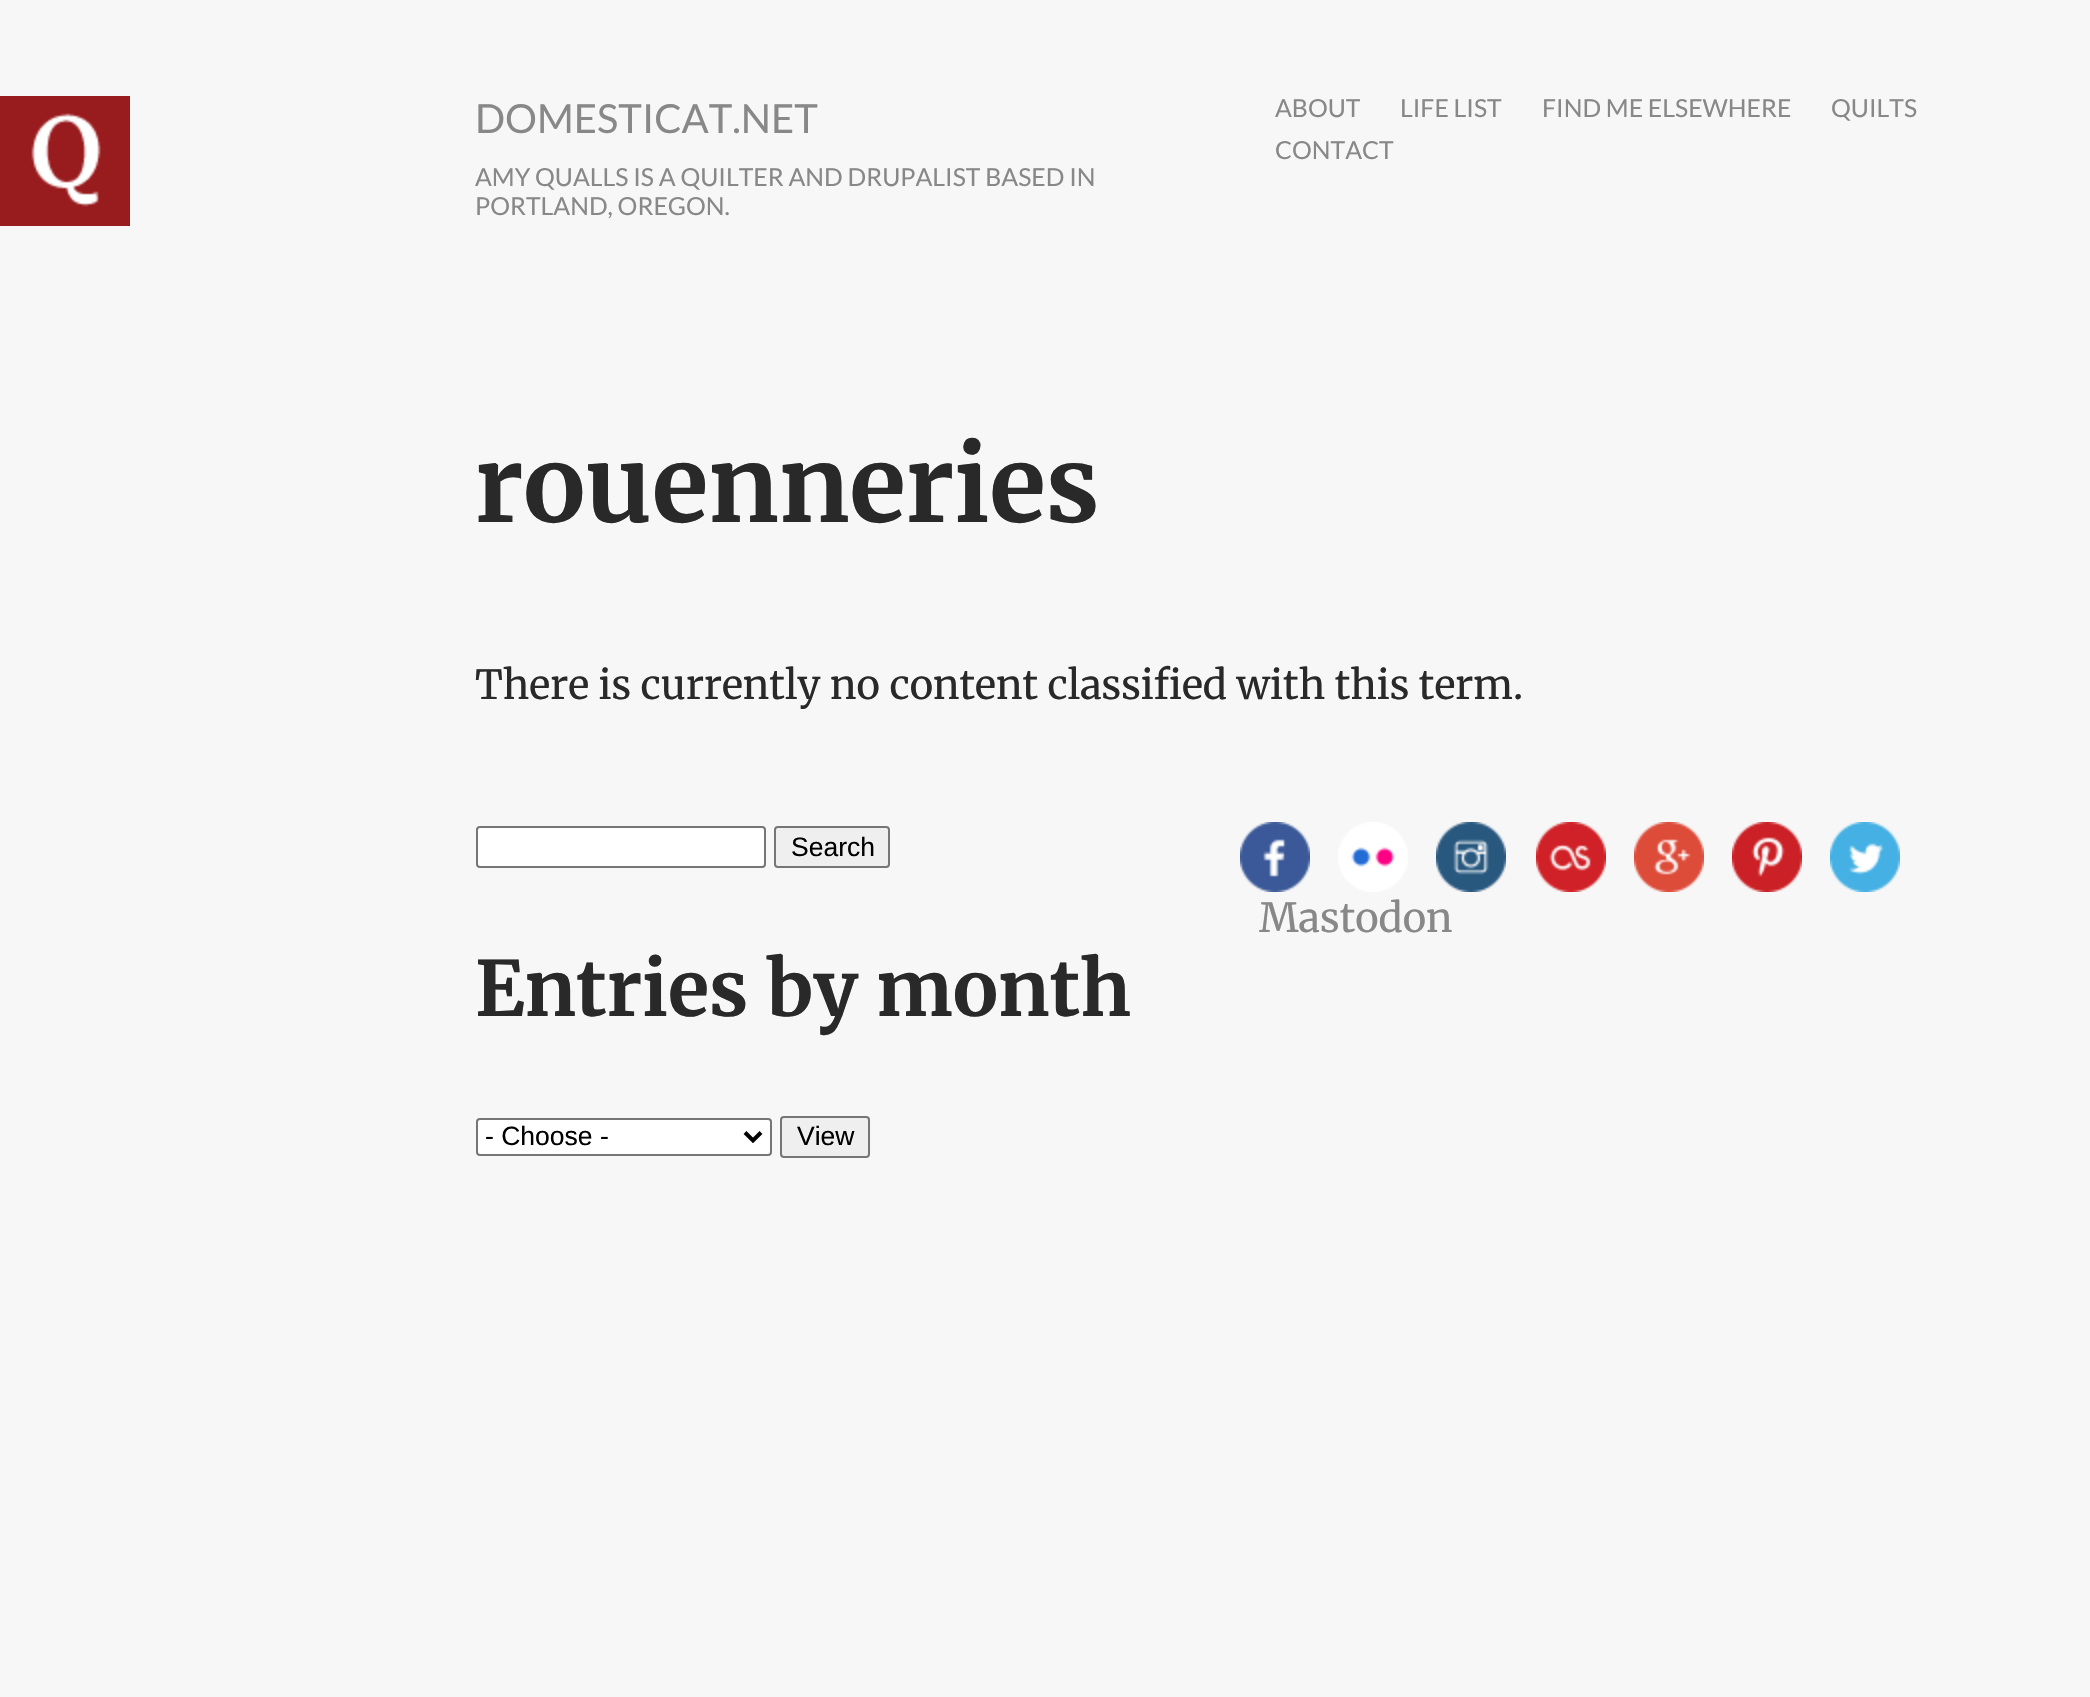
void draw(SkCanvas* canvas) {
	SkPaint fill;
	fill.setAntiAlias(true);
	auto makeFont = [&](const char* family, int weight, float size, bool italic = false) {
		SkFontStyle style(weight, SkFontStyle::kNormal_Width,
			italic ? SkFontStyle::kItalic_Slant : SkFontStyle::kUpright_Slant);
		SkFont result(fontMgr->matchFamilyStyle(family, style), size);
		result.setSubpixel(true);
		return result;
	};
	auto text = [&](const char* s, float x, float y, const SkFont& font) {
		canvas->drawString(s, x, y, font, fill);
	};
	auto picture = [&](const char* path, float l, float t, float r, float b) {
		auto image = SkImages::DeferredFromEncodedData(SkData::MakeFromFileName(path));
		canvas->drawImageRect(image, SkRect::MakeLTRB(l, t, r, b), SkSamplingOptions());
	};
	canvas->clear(0xFFF7F7F7);
	picture("image0.png", 0, 96, 130, 226);
	fill.setColor(0xFFFFFFFF);
	canvas->drawRoundRect(SkRect::MakeLTRB(477, 827, 765, 867), 3, 3, fill);
	fill.setStyle(SkPaint::kStroke_Style);
	fill.setStrokeWidth(2);
	fill.setColor(0xFF767676);
	canvas->drawRoundRect(SkRect::MakeLTRB(477, 827, 765, 867), 3, 3, fill);
	fill.setStyle(SkPaint::kFill_Style);
	fill.setColor(0xFFEFEFEF);
	canvas->drawRoundRect(SkRect::MakeLTRB(775, 827, 889, 867), 3, 3, fill);
	fill.setStyle(SkPaint::kStroke_Style);
	fill.setColor(0xFF767676);
	canvas->drawRoundRect(SkRect::MakeLTRB(775, 827, 889, 867), 3, 3, fill);
	fill.setStyle(SkPaint::kFill_Style);
	fill.setColor(0xFFFFFFFF);
	canvas->drawRoundRect(SkRect::MakeLTRB(477, 1119, 771, 1155), 3, 3, fill);
	fill.setStyle(SkPaint::kStroke_Style);
	fill.setColor(0xFF767676);
	canvas->drawRoundRect(SkRect::MakeLTRB(477, 1119, 771, 1155), 3, 3, fill);
	fill.setStrokeWidth(4);
	fill.setColor(0xFF000000);
	canvas->drawPath(SkPathBuilder().moveTo(745, 1132.5f).lineTo(753, 1140.5f).lineTo(761, 1132.5f).detach(), fill);
	fill.setStyle(SkPaint::kFill_Style);
	fill.setColor(0xFFEFEFEF);
	canvas->drawRoundRect(SkRect::MakeLTRB(781, 1117, 869, 1157), 3, 3, fill);
	fill.setStyle(SkPaint::kStroke_Style);
	fill.setStrokeWidth(2);
	fill.setColor(0xFF767676);
	canvas->drawRoundRect(SkRect::MakeLTRB(781, 1117, 869, 1157), 3, 3, fill);
	picture("image1.png", 1240, 822, 1310, 892);
	picture("image2.png", 1338, 822, 1408, 892);
	picture("image3.png", 1436, 822, 1506, 892);
	picture("image4.png", 1536, 822, 1606, 892);
	picture("image5.png", 1634, 822, 1704, 892);
	picture("image6.png", 1732, 822, 1802, 892);
	picture("image7.png", 1830, 822, 1900, 892);
	auto font1 = makeFont("Lato", 400, 40);
	fill.setStyle(SkPaint::kFill_Style);
	fill.setColor(0xFF888888);
	text("DOMESTICAT.NET", 475, 133, font1);
	auto font2 = makeFont("Lato", 400, 24.8f);
	text("AMY QUALLS IS A QUILTER AND DRUPALIST BASED IN", 475, 186, font2);
	text("PORTLAND, OREGON.", 475, 215, font2);
	text("ABOUT", 1275, 117, font2);
	text("LIFE LIST", 1400, 117, font2);
	text("FIND ME ELSEWHERE", 1542, 117, font2);
	text("QUILTS", 1831, 117, font2);
	text("CONTACT", 1275, 159, font2);
	auto font3 = makeFont("Merriweather", 700, 104);
	fill.setColor(0xFF292929);
	text("rouenneries", 475, 522, font3);
	auto font4 = makeFont("Merriweather", 400, 40);
	text("There is currently no content classified with this term.", 475, 699, font4);
	auto font5 = makeFont("Liberation Sans", 400, 26.5f);
	fill.setColor(0xFF000000);
	text("Search", 791, 856, font5);
	auto font6 = makeFont("Merriweather", 700, 76);
	fill.setColor(0xFF292929);
	text("Entries by month", 475, 1016, font6);
	fill.setColor(0xFF000000);
	text("- Choose -", 485, 1145, font5);
	text("View", 797, 1145, font5);
	fill.setColor(0xFF888888);
	text("Mastodon", 1259, 932, font4);
}
